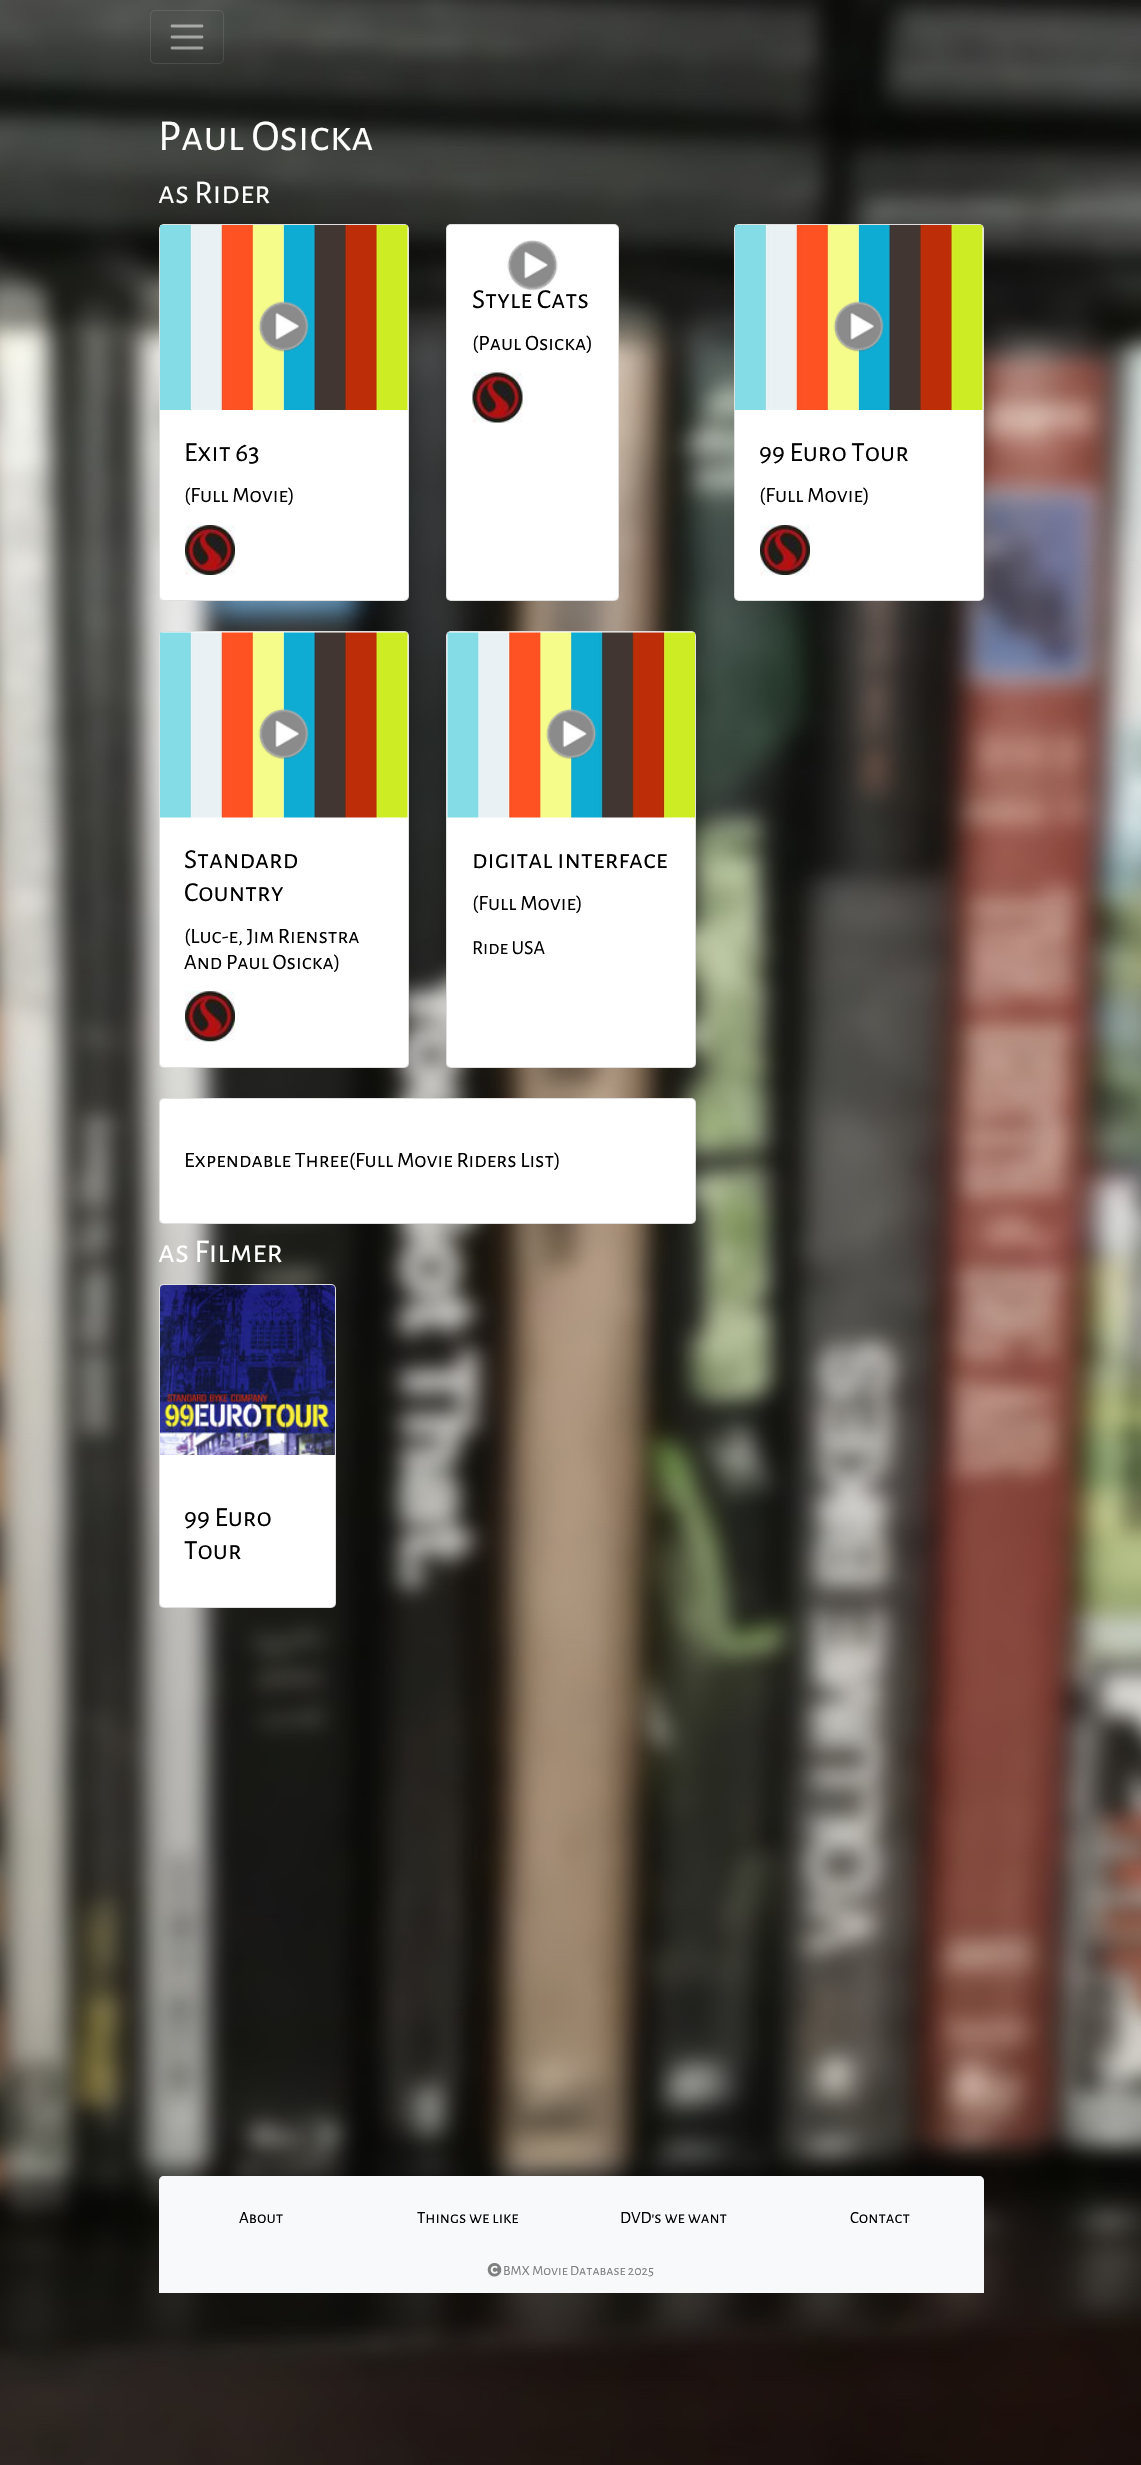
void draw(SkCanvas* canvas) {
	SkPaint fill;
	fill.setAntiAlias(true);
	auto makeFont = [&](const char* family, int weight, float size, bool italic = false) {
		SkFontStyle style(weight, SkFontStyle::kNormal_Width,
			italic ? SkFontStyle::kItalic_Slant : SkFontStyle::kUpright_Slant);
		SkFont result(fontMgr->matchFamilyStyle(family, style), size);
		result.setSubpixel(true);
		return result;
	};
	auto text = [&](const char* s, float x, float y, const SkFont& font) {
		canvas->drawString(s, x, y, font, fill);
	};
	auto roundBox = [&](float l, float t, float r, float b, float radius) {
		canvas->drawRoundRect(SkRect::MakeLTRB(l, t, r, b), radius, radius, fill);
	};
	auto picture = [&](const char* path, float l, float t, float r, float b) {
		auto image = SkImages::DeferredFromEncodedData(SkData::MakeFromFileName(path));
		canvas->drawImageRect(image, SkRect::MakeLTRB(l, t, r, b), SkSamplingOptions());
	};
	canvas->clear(0xFFFFFFFF);
	picture("image0.png", 0, 0, 1141, 2465);
	fill.setStyle(SkPaint::kStroke_Style);
	fill.setStrokeWidth(1);
	fill.setColor(0x1AFFFFFF);
	canvas->drawRoundRect(SkRect::MakeLTRB(150.5f, 10.5f, 223.5f, 63.5f), 4.5f, 4.5f, fill);
	fill.setStrokeWidth(2.8f);
	fill.setStrokeCap(SkPaint::kRound_Cap);
	fill.setColor(0x80FFFFFF);
	canvas->drawPath(SkPathBuilder().moveTo(172, 26).lineTo(202, 26).moveTo(172, 37).lineTo(202, 37).moveTo(172, 48).lineTo(202, 48).detach(), fill);
	fill.setStyle(SkPaint::kFill_Style);
	fill.setColor(0xFFFFFFFF);
	roundBox(446, 224, 619, 601, 5);
	fill.setStyle(SkPaint::kStroke_Style);
	fill.setStrokeWidth(1);
	fill.setStrokeCap(SkPaint::kButt_Cap);
	fill.setColor(0x1F000000);
	canvas->drawRoundRect(SkRect::MakeLTRB(446.5f, 224.5f, 618.5f, 600.5f), 4.5f, 4.5f, fill);
	picture("image2.png", 472, 372, 523, 423);
	fill.setStyle(SkPaint::kFill_Style);
	fill.setColor(0xFFFFFFFF);
	roundBox(159, 224, 409, 601, 5);
	fill.setStyle(SkPaint::kStroke_Style);
	fill.setColor(0x1F000000);
	canvas->drawRoundRect(SkRect::MakeLTRB(159.5f, 224.5f, 408.5f, 600.5f), 4.5f, 4.5f, fill);
	picture("image3.png", 160, 225, 408, 410);
	picture("image4.png", 258, 301, 309, 352);
	picture("image5.png", 185, 525, 235, 575);
	fill.setStyle(SkPaint::kFill_Style);
	fill.setColor(0xFFFFFFFF);
	roundBox(734, 224, 984, 601, 5);
	fill.setStyle(SkPaint::kStroke_Style);
	fill.setColor(0x1F000000);
	canvas->drawRoundRect(SkRect::MakeLTRB(734.5f, 224.5f, 983.5f, 600.5f), 4.5f, 4.5f, fill);
	picture("image6.png", 735, 225, 983, 410);
	picture("image7.png", 833, 301, 884, 352);
	picture("image8.png", 760, 525, 810, 575);
	fill.setStyle(SkPaint::kFill_Style);
	fill.setColor(0xFFFFFFFF);
	roundBox(159, 631, 409, 1068, 5);
	fill.setStyle(SkPaint::kStroke_Style);
	fill.setColor(0x1F000000);
	canvas->drawRoundRect(SkRect::MakeLTRB(159.5f, 631.5f, 408.5f, 1067.5f), 4.5f, 4.5f, fill);
	picture("image9.png", 160, 632, 408, 818);
	picture("image10.png", 258, 708, 309, 759);
	picture("image11.png", 185, 991, 235, 1042);
	fill.setStyle(SkPaint::kFill_Style);
	fill.setColor(0xFFFFFFFF);
	roundBox(446, 631, 696, 1068, 5);
	fill.setStyle(SkPaint::kStroke_Style);
	fill.setColor(0x1F000000);
	canvas->drawRoundRect(SkRect::MakeLTRB(446.5f, 631.5f, 695.5f, 1067.5f), 4.5f, 4.5f, fill);
	picture("image12.png", 447, 632, 695, 818);
	picture("image13.png", 546, 708, 597, 759);
	fill.setStyle(SkPaint::kFill_Style);
	fill.setColor(0xFFFFFFFF);
	roundBox(159, 1098, 696, 1224, 5);
	fill.setStyle(SkPaint::kStroke_Style);
	fill.setColor(0x1F000000);
	canvas->drawRoundRect(SkRect::MakeLTRB(159.5f, 1098.5f, 695.5f, 1223.5f), 4.5f, 4.5f, fill);
	fill.setStyle(SkPaint::kFill_Style);
	fill.setColor(0xFFFFFFFF);
	roundBox(159, 1284, 336, 1608, 5);
	fill.setStyle(SkPaint::kStroke_Style);
	fill.setColor(0x1F000000);
	canvas->drawRoundRect(SkRect::MakeLTRB(159.5f, 1284.5f, 335.5f, 1607.5f), 4.5f, 4.5f, fill);
	picture("image14.png", 160, 1285, 335, 1455);
	fill.setStyle(SkPaint::kFill_Style);
	fill.setColor(0xFFF8F9FA);
	canvas->drawPath(SkPathBuilder().moveTo(164, 2176).lineTo(979, 2176).cubicTo(982, 2176, 984, 2178, 984, 2181).lineTo(984, 2293).lineTo(159, 2293).lineTo(159, 2181).cubicTo(159, 2178, 161, 2176, 164, 2176).close().detach(), fill);
	picture("image15.png", 487, 2263, 502, 2277);
	auto font1 = makeFont("Alegreya Sans SC", 400, 44);
	fill.setColor(0xFFFFFFFF);
	text("Paul Osicka", 158, 150, font1);
	auto font2 = makeFont("Alegreya Sans SC", 400, 33);
	text("as Rider", 158, 203, font2);
	auto font3 = makeFont("Alegreya Sans SC", 400, 27.5f);
	fill.setColor(0xFF000000);
	text("Style Cats", 472, 308, font3);
	picture("image1.png", 507, 240, 558, 291);
	auto font4 = makeFont("Alegreya Sans SC", 400, 22);
	text("(Paul Osicka)", 472, 350, font4);
	text("Exit 63", 184, 461, font3);
	text("(Full Movie)", 184, 502, font4);
	text("99 Euro Tour", 759, 461, font3);
	text("(Full Movie)", 759, 502, font4);
	text("Standard", 184, 868, font3);
	text("Country", 184, 901, font3);
	text("(Luc-e, Jim Rienstra", 184, 943, font4);
	text("And Paul Osicka)", 184, 969, font4);
	text("digital interface", 472, 868, font3);
	text("(Full Movie)", 472, 910, font4);
	auto font5 = makeFont("Alegreya Sans SC", 400, 20);
	text("Ride USA", 472, 954, font5);
	text("Expendable Three(Full Movie Riders List)", 184, 1167, font4);
	fill.setColor(0xFFFFFFFF);
	text("as Filmer", 158, 1262, font2);
	fill.setColor(0xFF000000);
	text("99 Euro", 184, 1526, font3);
	text("Tour", 184, 1559, font3);
	auto font6 = makeFont("Alegreya Sans SC", 400, 17);
	text("About", 239, 2223, font6);
	text("Things we like", 417, 2223, font6);
	text("DVD's we want", 620, 2223, font6);
	text("Contact", 850, 2223, font6);
	auto font7 = makeFont("Alegreya Sans SC", 400, 14);
	fill.setColor(0xFF808080);
	text("BMX Movie Database 2025", 503, 2275, font7);
}
